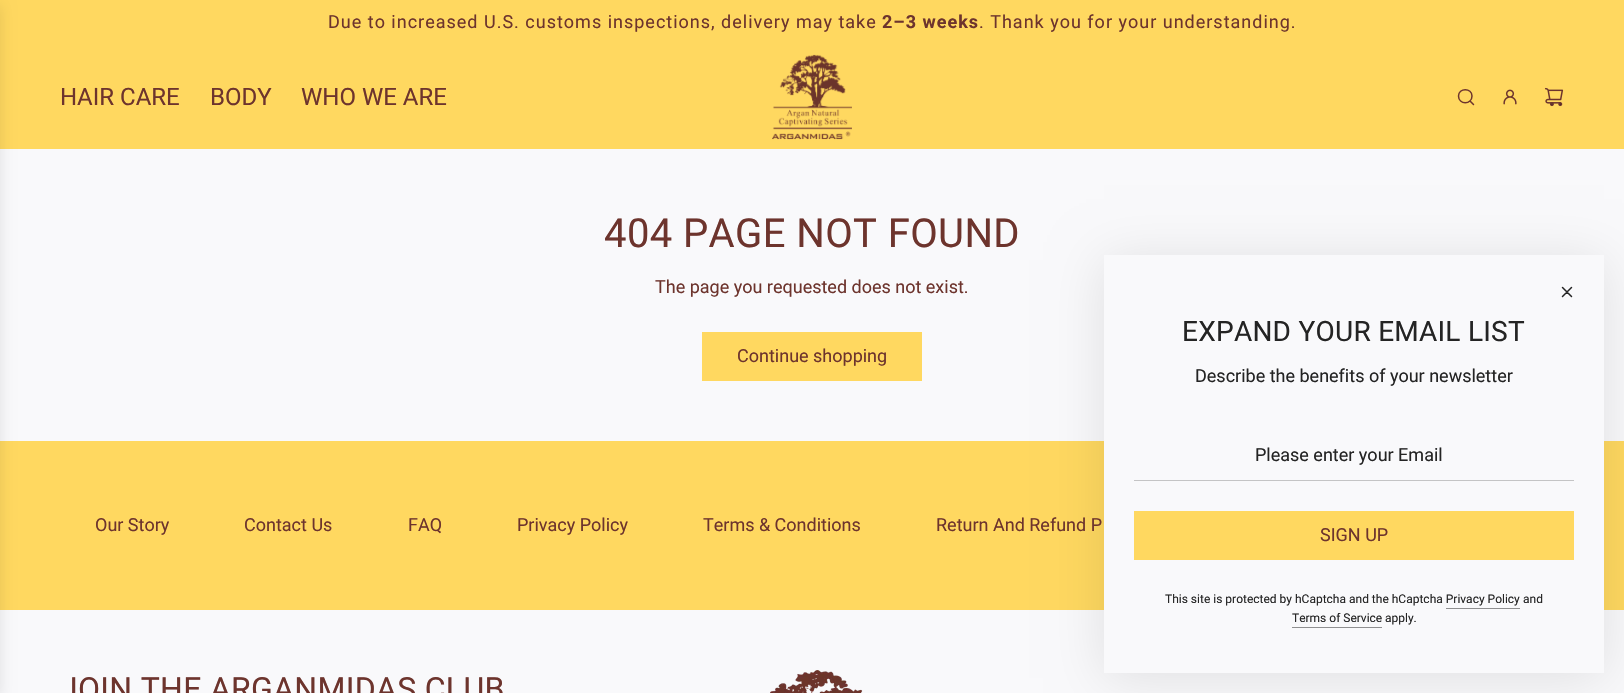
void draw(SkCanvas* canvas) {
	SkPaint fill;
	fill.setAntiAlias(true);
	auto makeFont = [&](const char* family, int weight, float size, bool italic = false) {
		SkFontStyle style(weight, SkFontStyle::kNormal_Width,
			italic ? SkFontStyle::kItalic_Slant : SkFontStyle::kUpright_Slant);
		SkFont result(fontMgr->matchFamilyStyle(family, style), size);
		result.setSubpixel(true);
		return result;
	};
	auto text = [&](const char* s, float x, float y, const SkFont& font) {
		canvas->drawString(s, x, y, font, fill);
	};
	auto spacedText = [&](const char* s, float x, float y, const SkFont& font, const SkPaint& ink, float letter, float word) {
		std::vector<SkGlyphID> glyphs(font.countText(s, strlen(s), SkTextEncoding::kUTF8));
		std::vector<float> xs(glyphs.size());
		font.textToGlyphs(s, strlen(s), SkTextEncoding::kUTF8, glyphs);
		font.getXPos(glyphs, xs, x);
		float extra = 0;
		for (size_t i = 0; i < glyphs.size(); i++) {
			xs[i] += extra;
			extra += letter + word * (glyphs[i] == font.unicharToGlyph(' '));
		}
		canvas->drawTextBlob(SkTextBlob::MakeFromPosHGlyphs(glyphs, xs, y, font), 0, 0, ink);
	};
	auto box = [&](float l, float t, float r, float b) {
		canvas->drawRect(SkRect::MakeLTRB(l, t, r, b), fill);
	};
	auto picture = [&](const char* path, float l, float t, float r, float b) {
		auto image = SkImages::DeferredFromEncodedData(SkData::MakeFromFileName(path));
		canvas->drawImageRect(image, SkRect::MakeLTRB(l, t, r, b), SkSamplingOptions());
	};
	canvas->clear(0xFFF9F9FB);
	fill.setColor(0xFFFFD860);
	box(0, 0, 1624, 149);
	box(0, 441, 1624, 610);
	fill.setColor(0x1A000000);
	fill.setMaskFilter(SkMaskFilter::MakeBlur(kNormal_SkBlurStyle, 7.5f));
	canvas->drawRect(SkRect::MakeLTRB(-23, 5, 0, 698), fill);
	fill.setMaskFilter(nullptr);
	picture("image0.png", 772, 54, 852, 140);
	fill.setStyle(SkPaint::kStroke_Style);
	fill.setStrokeWidth(1.5f);
	fill.setStrokeCap(SkPaint::kRound_Cap);
	fill.setStrokeJoin(SkPaint::kRound_Join);
	fill.setColor(0xFF6D342D);
	canvas->drawPath(SkPathBuilder().moveTo(1470, 101).lineTo(1473.5f, 104.5f).moveTo(1458.5f, 96).cubicTo(1458.5f, 105, 1472, 105, 1472, 96).cubicTo(1472, 87.5f, 1458.5f, 87.5f, 1458.5f, 96).close().detach(), fill);
	picture("image1.png", 1503, 89, 1517, 105);
	picture("image2.png", 1544, 87, 1564, 107);
	fill.setStyle(SkPaint::kFill_Style);
	fill.setColor(0xFFFFD860);
	box(702, 332, 922, 381);
	picture("image3.png", 770, 670, 863, 693);
	fill.setColor(0x1A000000);
	fill.setMaskFilter(SkMaskFilter::MakeBlur(kNormal_SkBlurStyle, 25));
	canvas->drawRect(SkRect::MakeLTRB(1104, 260, 1604, 678), fill);
	fill.setMaskFilter(nullptr);
	fill.setColor(0xFFF9F9FB);
	box(1104, 255, 1604, 673);
	fill.setStyle(SkPaint::kStroke_Style);
	fill.setColor(0xFF242424);
	canvas->drawPath(SkPathBuilder().moveTo(1562.5f, 296.5f).lineTo(1567, 292).lineTo(1571.5f, 296.5f).moveTo(1571.5f, 287.5f).lineTo(1567, 292).lineTo(1562.5f, 287.5f).detach(), fill);
	fill.setStyle(SkPaint::kFill_Style);
	fill.setColor(0xFFC4C4C5);
	box(1134, 480, 1574, 481);
	fill.setColor(0xFFFFD860);
	box(1134, 511, 1574, 560);
	fill.setColor(0xFF8F8F90);
	box(1446, 608, 1520, 609);
	box(1292, 627, 1382, 628);
	auto font1 = makeFont("Roboto", 400, 18);
	fill.setColor(0xFF6D342D);
	spacedText("Due to increased U.S. customs inspections, delivery may take", 328, 28, font1, fill, 1, 0);
	auto font2 = makeFont("Roboto", 700, 18);
	spacedText("2–3 weeks", 882, 28, font2, fill, 1, 0);
	spacedText(". Thank you for your understanding.", 979, 28, font1, fill, 1, 0);
	auto font3 = makeFont("Roboto", 400, 24);
	text("HAIR CARE", 60, 105, font3);
	text("BODY", 210, 105, font3);
	text("WHO WE ARE", 301, 105, font3);
	auto font4 = makeFont("Roboto", 400, 40);
	spacedText("404 PAGE NOT FOUND", 604, 247, font4, fill, 0.4f, 0);
	text("The page you requested does not exist.", 655, 293, font1);
	text("Continue shopping", 737, 362, font1);
	text("Our Story", 95, 531, font1);
	text("Contact Us", 244, 531, font1);
	text("FAQ", 408, 531, font1);
	text("Privacy Policy", 517, 531, font1);
	text("Terms & Conditions", 703, 531, font1);
	text("Return And Refund P", 936, 531, font1);
	auto font5 = makeFont("Roboto", 400, 32);
	spacedText("JOIN THE ARGANMIDAS CLUB", 60, 700, font5, fill, 0.3f, 0);
	auto font6 = makeFont("Roboto", 400, 28);
	fill.setColor(0xFF242424);
	spacedText("EXPAND YOUR EMAIL LIST", 1182, 341, font6, fill, 0.25f, 0);
	text("Describe the benefits of your newsletter", 1195, 382, font1);
	text("Please enter your Email", 1255, 461, font1);
	fill.setColor(0xFF6D342D);
	text("SIGN UP", 1320, 541, font1);
	auto font7 = makeFont("Roboto", 400, 12);
	fill.setColor(0xFF242424);
	text("This site is protected by hCaptcha and the hCaptcha Privacy Policy", 1165, 603, font7);
	text("and", 1523, 603, font7);
	text("Terms of Service", 1292, 622, font7);
	text("apply.", 1385, 622, font7);
}
